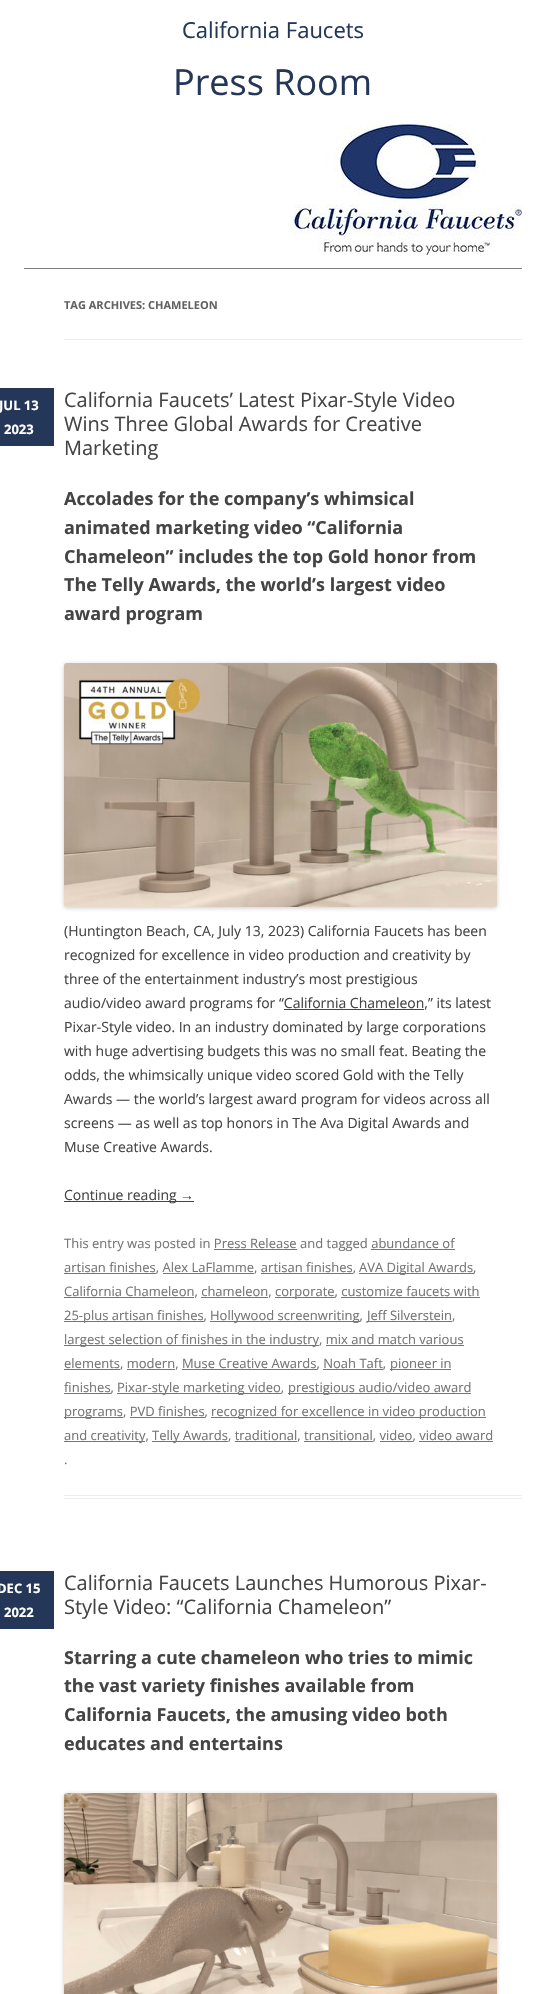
void draw(SkCanvas* canvas) {
	SkPaint fill;
	fill.setAntiAlias(true);
	auto makeFont = [&](const char* family, int weight, float size, bool italic = false) {
		SkFontStyle style(weight, SkFontStyle::kNormal_Width,
			italic ? SkFontStyle::kItalic_Slant : SkFontStyle::kUpright_Slant);
		SkFont result(fontMgr->matchFamilyStyle(family, style), size);
		result.setSubpixel(true);
		return result;
	};
	auto text = [&](const char* s, float x, float y, const SkFont& font) {
		canvas->drawString(s, x, y, font, fill);
	};
	auto box = [&](float l, float t, float r, float b) {
		canvas->drawRect(SkRect::MakeLTRB(l, t, r, b), fill);
	};
	auto picture = [&](const char* path, float l, float t, float r, float b) {
		auto image = SkImages::DeferredFromEncodedData(SkData::MakeFromFileName(path));
		canvas->drawImageRect(image, SkRect::MakeLTRB(l, t, r, b), SkSamplingOptions());
	};
	canvas->clear(0xFFFFFFFF);
	fill.setColor(0xFF808080);
	box(24, 268, 522, 269);
	picture("image0.png", 294, 124, 522, 255);
	fill.setColor(0xFFEDEDED);
	box(64, 339, 522, 340);
	box(64, 1495, 522, 1496);
	box(64, 1498, 522, 1499);
	fill.setColor(0xFF243759);
	box(0, 388, 54, 446);
	fill.setColor(0xFF757575);
	box(214, 1249, 297, 1250);
	box(371, 1249, 455, 1250);
	box(64, 1273, 156, 1274);
	box(359, 1273, 474, 1274);
	box(163, 1273, 254, 1274);
	box(261, 1273, 353, 1274);
	box(64, 1297, 194, 1298);
	box(275, 1297, 335, 1298);
	box(201, 1297, 268, 1298);
	box(341, 1297, 480, 1298);
	box(64, 1321, 204, 1322);
	box(210, 1321, 360, 1322);
	box(367, 1321, 452, 1322);
	box(64, 1345, 319, 1346);
	box(326, 1345, 464, 1346);
	box(64, 1369, 120, 1370);
	box(390, 1369, 451, 1370);
	box(127, 1369, 175, 1370);
	box(182, 1369, 317, 1370);
	box(323, 1369, 383, 1370);
	box(64, 1393, 111, 1394);
	box(117, 1393, 281, 1394);
	box(288, 1393, 471, 1394);
	box(64, 1417, 123, 1418);
	box(211, 1417, 486, 1418);
	box(130, 1417, 205, 1418);
	box(64, 1441, 145, 1442);
	box(152, 1441, 228, 1442);
	box(235, 1441, 297, 1442);
	box(304, 1441, 373, 1442);
	box(380, 1441, 413, 1442);
	box(419, 1441, 493, 1442);
	fill.setColor(0x33000000);
	fill.setMaskFilter(SkMaskFilter::MakeBlur(kNormal_SkBlurStyle, 2));
	canvas->drawRoundRect(SkRect::MakeLTRB(64, 664, 497, 908), 3, 3, fill);
	fill.setMaskFilter(nullptr);
	picture("image1.png", 64, 663, 497, 907);
	fill.setColor(0xFF444444);
	box(284, 1009, 424, 1010);
	box(64, 1201, 194, 1202);
	fill.setColor(0xFF243759);
	box(0, 1571, 54, 1629);
	fill.setColor(0x33000000);
	fill.setMaskFilter(SkMaskFilter::MakeBlur(kNormal_SkBlurStyle, 2));
	canvas->drawRoundRect(SkRect::MakeLTRB(64, 1794, 497, 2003), 3, 3, fill);
	fill.setMaskFilter(nullptr);
	picture("image2.png", 64, 1793, 497, 1994);
	auto font1 = makeFont("Open Sans", 400, 22);
	fill.setColor(0xFF243759);
	text("California Faucets", 182, 38, font1);
	auto font2 = makeFont("Open Sans", 400, 36);
	text("Press Room", 173, 95, font2);
	auto font3 = makeFont("Open Sans", 700, 11);
	fill.setColor(0xFF636363);
	text("TAG ARCHIVES: CHAMELEON", 64, 309, font3);
	auto font4 = makeFont("Open Sans", 400, 20);
	fill.setColor(0xFF444444);
	text("California Faucets’ Latest Pixar-Style Video", 64, 407, font4);
	text("Wins Three Global Awards for Creative", 64, 431, font4);
	text("Marketing", 64, 455, font4);
	auto font5 = makeFont("Open Sans", 700, 13);
	fill.setColor(0xFFFFFFFF);
	text("JUL 13", -1, 410, font5);
	text("2023", 4, 434, font5);
	auto font6 = makeFont("Open Sans", 400, 13);
	fill.setColor(0xFF757575);
	text("This entry was posted in Press Release and tagged abundance of", 64, 1248, font6);
	text("artisan finishes, Alex LaFlamme, artisan finishes,", 64, 1272, font6);
	text("AVA Digital Awards,", 359, 1272, font6);
	text("California Chameleon, chameleon,", 64, 1296, font6);
	text("corporate, customize faucets with", 275, 1296, font6);
	text("25-plus artisan finishes,", 64, 1320, font6);
	text("Hollywood screenwriting,", 210, 1320, font6);
	text("Jeff Silverstein,", 367, 1320, font6);
	text("largest selection of finishes in the industry, mix and match various", 64, 1344, font6);
	text("elements, modern, Muse Creative Awards, Noah Taft,", 64, 1368, font6);
	text("pioneer in", 390, 1368, font6);
	text("finishes,", 64, 1392, font6);
	text("Pixar-style marketing video,", 117, 1392, font6);
	text("prestigious audio/video award", 288, 1392, font6);
	text("programs, PVD finishes,", 64, 1416, font6);
	text("recognized for excellence in video production", 211, 1416, font6);
	text("and creativity,", 64, 1440, font6);
	text("Telly Awards, traditional, transitional, video, video award", 152, 1440, font6);
	text(".", 64, 1464, font6);
	auto font7 = makeFont("Open Sans", 700, 18);
	fill.setColor(0xFF444444);
	text("Accolades for the company’s whimsical", 64, 505, font7);
	text("animated marketing video “California", 64, 534, font7);
	text("Chameleon” includes the top Gold honor from", 64, 563, font7);
	text("The Telly Awards, the world’s largest video", 64, 591, font7);
	text("award program", 64, 620, font7);
	auto font8 = makeFont("Open Sans", 400, 14);
	text("(Huntington Beach, CA, July 13, 2023) California Faucets has been", 64, 936, font8);
	text("recognized for excellence in video production and creativity by", 64, 960, font8);
	text("three of the entertainment industry’s most prestigious", 64, 984, font8);
	text("audio/video award programs for “California Chameleon,” its latest", 64, 1008, font8);
	text("Pixar-Style video. In an industry dominated by large corporations", 64, 1032, font8);
	text("with huge advertising budgets this was no small feat. Beating the", 64, 1056, font8);
	text("odds, the whimsically unique video scored Gold with the Telly", 64, 1080, font8);
	text("Awards — the world’s largest award program for videos across all", 64, 1104, font8);
	text("screens — as well as top honors in The Ava Digital Awards and", 64, 1128, font8);
	text("Muse Creative Awards.", 64, 1152, font8);
	text("Continue reading", 64, 1200, font8);
	auto font9 = makeFont("Liberation Sans", 400, 14);
	text("→", 180, 1200, font9);
	fill.setColor(0xFFFFFFFF);
	text("DEC 15", -3, 1593, font5);
	text("2022", 4, 1617, font5);
	fill.setColor(0xFF444444);
	text("California Faucets Launches Humorous Pixar-", 64, 1590, font4);
	text("Style Video: “California Chameleon”", 64, 1614, font4);
	text("Starring a cute chameleon who tries to mimic", 64, 1664, font7);
	text("the vast variety finishes available from", 64, 1692, font7);
	text("California Faucets, the amusing video both", 64, 1721, font7);
	text("educates and entertains", 64, 1750, font7);
}
